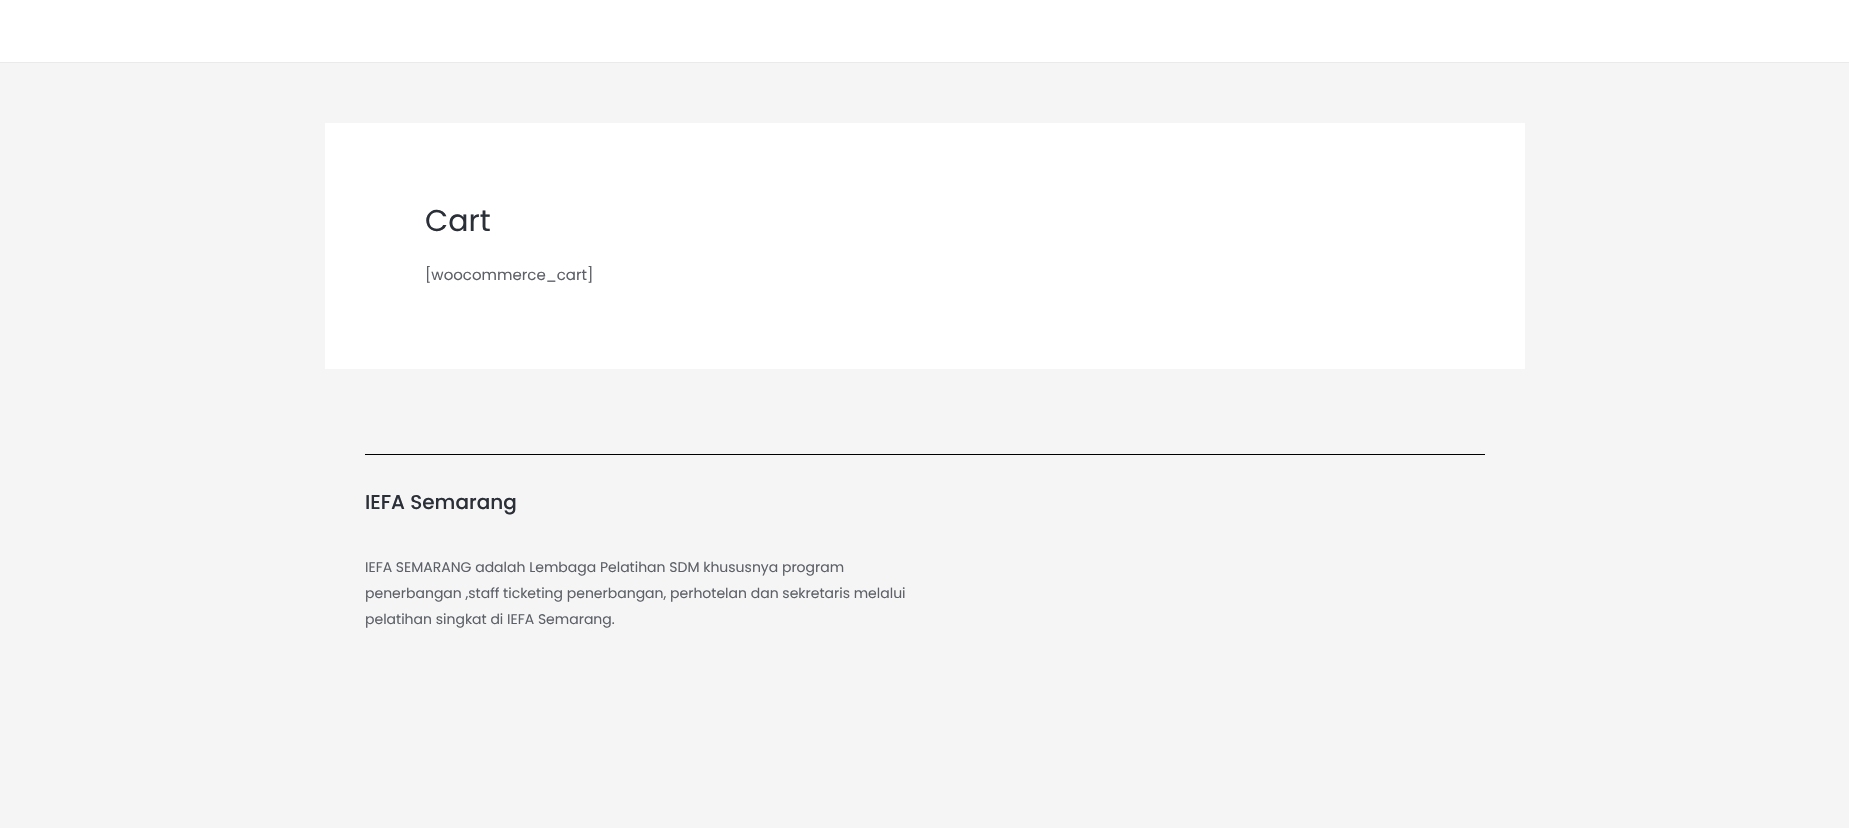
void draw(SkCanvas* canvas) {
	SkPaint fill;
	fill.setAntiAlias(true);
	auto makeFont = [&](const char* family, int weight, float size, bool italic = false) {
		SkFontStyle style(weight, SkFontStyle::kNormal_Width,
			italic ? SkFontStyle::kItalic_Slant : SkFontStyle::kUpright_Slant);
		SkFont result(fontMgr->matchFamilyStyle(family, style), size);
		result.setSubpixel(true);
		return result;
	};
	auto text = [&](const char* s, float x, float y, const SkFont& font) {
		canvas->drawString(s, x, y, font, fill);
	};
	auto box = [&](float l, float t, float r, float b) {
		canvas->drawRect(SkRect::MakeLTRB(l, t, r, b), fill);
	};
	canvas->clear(0xFFF5F5F5);
	fill.setColor(0xFFFFFFFF);
	box(0, 0, 1849, 62);
	fill.setColor(0xFFEAEAEA);
	box(0, 62, 1849, 63);
	fill.setColor(0xFFFFFFFF);
	box(325, 123, 1525, 369);
	fill.setColor(0xFF000000);
	box(365, 454, 1485, 455);
	auto font1 = makeFont("Poppins", 400, 30);
	fill.setColor(0xFF2B2F38);
	text("Cart", 425, 231, font1);
	auto font2 = makeFont("Poppins", 400, 15);
	fill.setColor(0xFF5D6167);
	text("[woocommerce_cart]", 425, 280, font2);
	auto font3 = makeFont("Poppins", 500, 20);
	fill.setColor(0xFF2B2F38);
	text("IEFA Semarang", 365, 509, font3);
	auto font4 = makeFont("Poppins", 400, 14);
	fill.setColor(0xFF5D6167);
	text("IEFA SEMARANG adalah Lembaga Pelatihan SDM khususnya program", 365, 572, font4);
	text("penerbangan ,staff ticketing penerbangan, perhotelan dan sekretaris melalui", 365, 598, font4);
	text("pelatihan singkat di IEFA Semarang.", 365, 624, font4);
}
